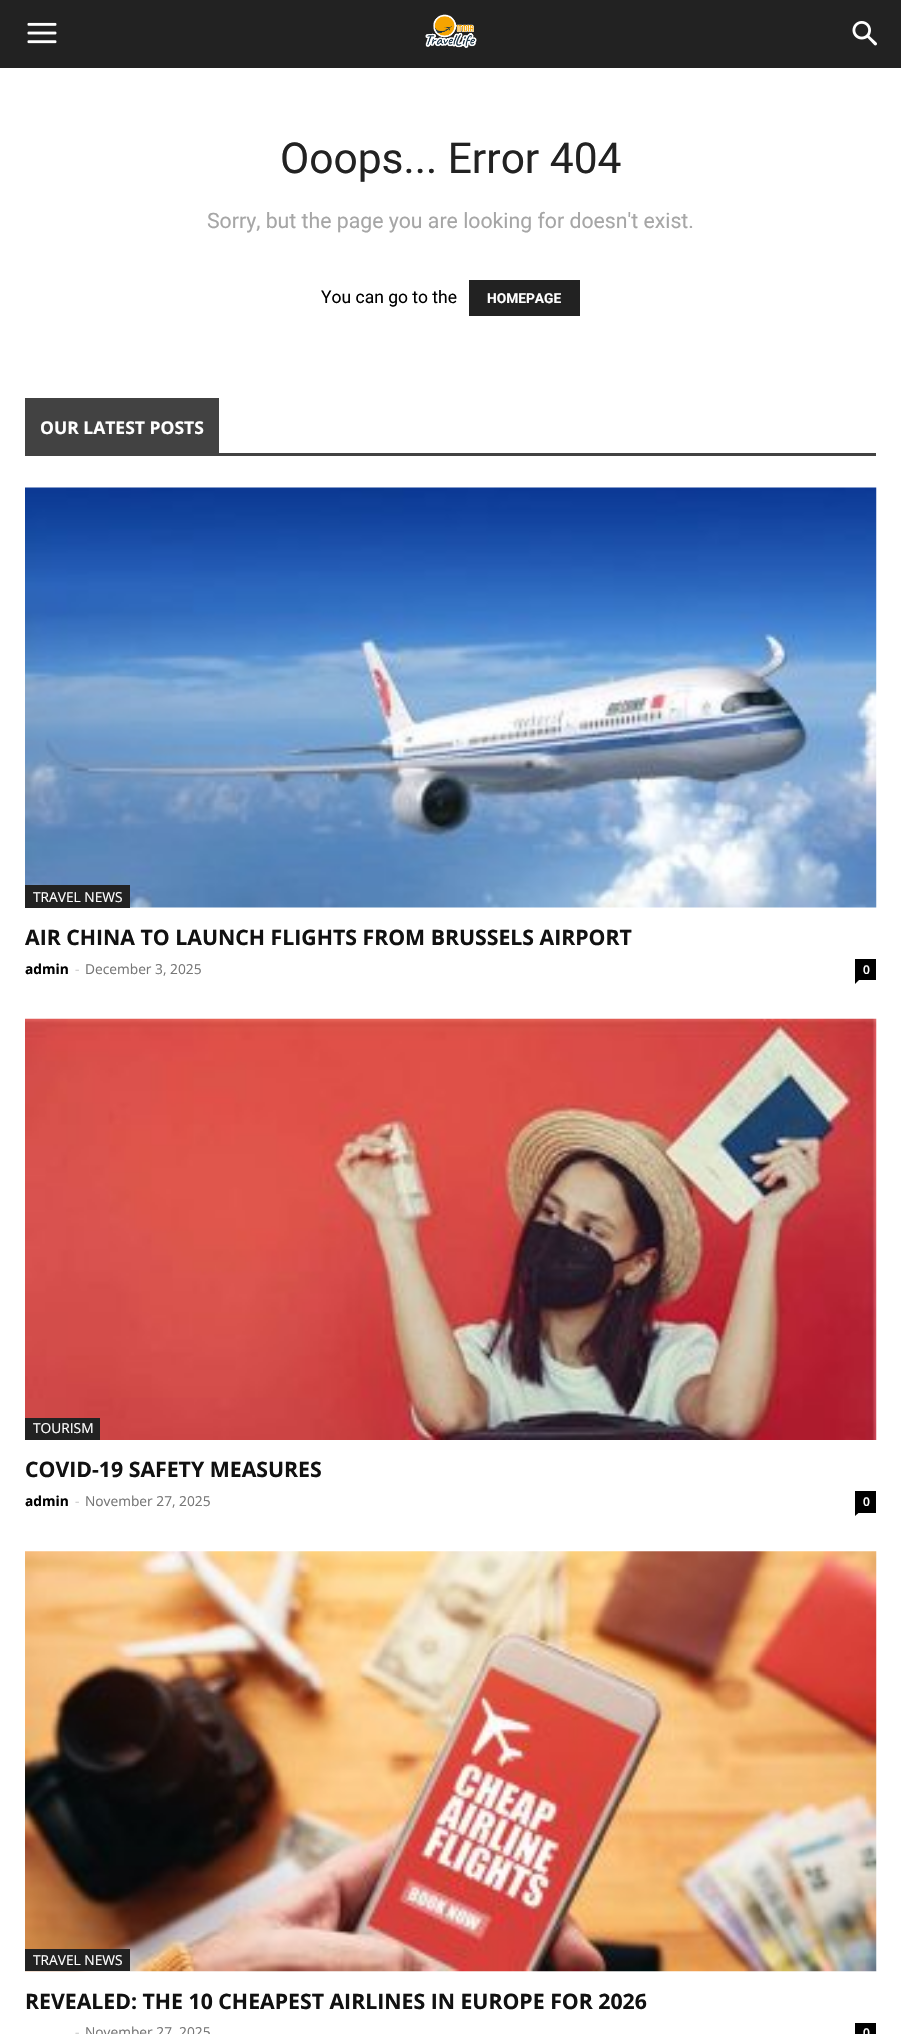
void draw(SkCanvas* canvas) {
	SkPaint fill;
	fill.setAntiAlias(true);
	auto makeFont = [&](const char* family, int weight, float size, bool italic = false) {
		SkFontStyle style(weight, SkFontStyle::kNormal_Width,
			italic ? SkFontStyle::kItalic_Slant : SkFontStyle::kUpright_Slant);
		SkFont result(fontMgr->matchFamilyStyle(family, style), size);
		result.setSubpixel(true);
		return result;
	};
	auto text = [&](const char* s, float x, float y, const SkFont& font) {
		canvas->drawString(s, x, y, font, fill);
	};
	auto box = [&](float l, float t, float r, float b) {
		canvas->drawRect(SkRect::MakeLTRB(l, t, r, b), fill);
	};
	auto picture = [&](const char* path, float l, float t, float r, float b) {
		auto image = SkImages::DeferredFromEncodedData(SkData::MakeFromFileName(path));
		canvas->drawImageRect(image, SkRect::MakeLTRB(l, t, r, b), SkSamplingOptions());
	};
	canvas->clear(0xFFFFFFFF);
	fill.setColor(0xFF222222);
	box(0, 0, 901, 68);
	picture("image0.png", 27, 22, 57, 44);
	picture("image1.png", 425, 14, 477, 48);
	picture("image2.png", 852, 21, 877, 46);
	box(469, 280, 580, 316);
	fill.setColor(0xFF424242);
	box(25, 453, 876, 456);
	box(25, 398, 219, 453);
	picture("image3.png", 25, 487, 877, 908);
	fill.setColor(0xFF222222);
	box(25, 885, 130, 908);
	fill.setColor(0xFF000000);
	box(855, 959, 876, 980);
	canvas->drawPath(SkPathBuilder().moveTo(855, 980).lineTo(859, 980).lineTo(855, 984).close().detach(), fill);
	picture("image4.png", 25, 1018, 877, 1440);
	fill.setColor(0xFF222222);
	box(25, 1418, 100, 1440);
	fill.setColor(0xFF000000);
	box(855, 1491, 876, 1513);
	canvas->drawPath(SkPathBuilder().moveTo(855, 1512.5f).lineTo(859, 1512.5f).lineTo(855, 1516).close().detach(), fill);
	picture("image5.png", 25, 1551, 877, 1972);
	fill.setColor(0xFF222222);
	box(25, 1949, 130, 1971);
	fill.setColor(0xFF000000);
	box(855, 2023, 876, 2034);
	auto font1 = makeFont("Roboto", 400, 42.5f);
	fill.setColor(0xFF222222);
	text("Ooops... Error 404", 280, 173, font1);
	auto font2 = makeFont("Roboto", 400, 21.25f);
	fill.setColor(0xFFA6A6A6);
	text("Sorry, but the page you are looking for doesn't exist.", 207, 228, font2);
	auto font3 = makeFont("Roboto", 400, 17.5f);
	fill.setColor(0xFF000000);
	text("You can go to the", 321, 303, font3);
	auto font4 = makeFont("Roboto", 700, 13.75f);
	fill.setColor(0xFFFFFFFF);
	text("HOMEPAGE", 487, 303, font4);
	auto font5 = makeFont("Open Sans", 700, 17.5f);
	text("OUR LATEST POSTS", 40, 434, font5);
	auto font6 = makeFont("Open Sans", 400, 13.75f);
	text("TRAVEL NEWS", 33, 902, font6);
	auto font7 = makeFont("Open Sans", 700, 21.25f);
	fill.setColor(0xFF111111);
	text("AIR CHINA TO LAUNCH FLIGHTS FROM BRUSSELS AIRPORT", 25, 945, font7);
	auto font8 = makeFont("Open Sans", 700, 13.75f);
	fill.setColor(0xFF000000);
	text("admin", 25, 974, font8);
	fill.setColor(0xFFCCCCCC);
	text("-", 75, 974, font6);
	fill.setColor(0xFF767676);
	text("December 3, 2025", 85, 974, font6);
	auto font9 = makeFont("Open Sans", 600, 12);
	fill.setColor(0xFFFFFFFF);
	text("0", 863, 974, font9);
	text("TOURISM", 33, 1433, font6);
	fill.setColor(0xFF111111);
	text("COVID-19 SAFETY MEASURES", 25, 1477, font7);
	fill.setColor(0xFF000000);
	text("admin", 25, 1506, font8);
	fill.setColor(0xFFCCCCCC);
	text("-", 75, 1506, font6);
	fill.setColor(0xFF767676);
	text("November 27, 2025", 85, 1506, font6);
	fill.setColor(0xFFFFFFFF);
	text("0", 863, 1506, font9);
	text("TRAVEL NEWS", 33, 1965, font6);
	fill.setColor(0xFF111111);
	text("REVEALED: THE 10 CHEAPEST AIRLINES IN EUROPE FOR 2026", 25, 2009, font7);
	fill.setColor(0xFFCCCCCC);
	text("-", 75, 2037, font6);
	fill.setColor(0xFF767676);
	text("November 27, 2025", 85, 2037, font6);
	fill.setColor(0xFFFFFFFF);
	text("0", 863, 2037, font9);
}
